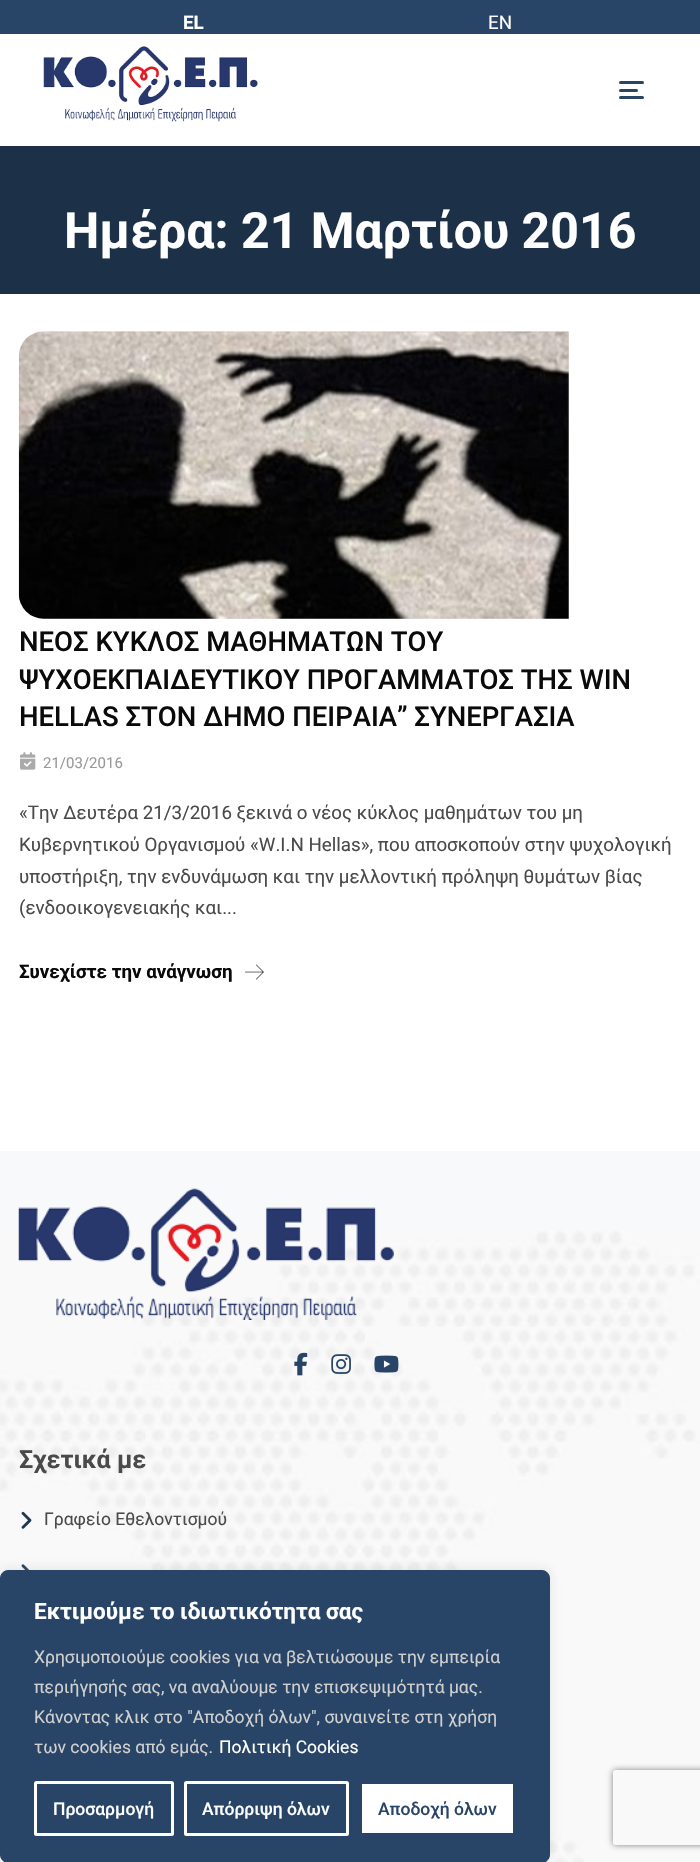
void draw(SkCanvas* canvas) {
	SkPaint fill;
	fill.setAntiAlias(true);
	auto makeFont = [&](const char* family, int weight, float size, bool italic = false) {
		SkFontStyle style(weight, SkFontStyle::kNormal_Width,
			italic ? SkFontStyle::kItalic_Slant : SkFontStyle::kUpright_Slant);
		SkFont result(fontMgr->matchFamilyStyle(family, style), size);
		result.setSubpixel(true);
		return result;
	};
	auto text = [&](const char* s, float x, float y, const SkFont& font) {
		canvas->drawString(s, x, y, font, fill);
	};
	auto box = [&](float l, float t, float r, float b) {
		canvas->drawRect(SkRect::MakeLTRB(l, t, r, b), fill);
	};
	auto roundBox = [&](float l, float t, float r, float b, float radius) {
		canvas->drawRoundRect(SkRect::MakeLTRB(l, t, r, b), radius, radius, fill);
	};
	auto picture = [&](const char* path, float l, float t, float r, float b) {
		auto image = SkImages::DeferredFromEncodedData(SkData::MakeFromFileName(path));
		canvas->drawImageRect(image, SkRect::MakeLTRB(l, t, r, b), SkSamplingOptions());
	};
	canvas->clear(0xFFFFFFFF);
	fill.setColor(0xFF284567);
	box(0, 0, 700, 34);
	picture("image0.png", 43, 46, 258, 122);
	roundBox(619, 81, 644, 84, 1.5f);
	roundBox(619, 89, 638, 92, 1.5f);
	roundBox(619, 96, 644, 99, 1.5f);
	fill.setColor(0xFF1C3148);
	box(0, 146, 700, 294);
	picture("image1.png", 18, 331, 569, 619);
	picture("image2.png", 20, 752, 36, 770);
	picture("image3.png", 245, 964, 264, 980);
	fill.setColor(0xFFF7F9FB);
	box(0, 1151, 700, 1230);
	picture("image4.png", 0, 1230, 700, 1862);
	picture("image5.png", 18, 1188, 394, 1320);
	picture("image6.png", 294, 1352, 308, 1376);
	picture("image7.png", 331, 1354, 351, 1374);
	picture("image8.png", 374, 1355, 399, 1373);
	picture("image9.png", 21, 1511, 32, 1529);
	picture("image10.png", 21, 1564, 30, 1570);
	fill.setColor(0x4DACABAB);
	fill.setMaskFilter(SkMaskFilter::MakeBlur(kNormal_SkBlurStyle, 6));
	canvas->drawRoundRect(SkRect::MakeLTRB(0, 1569, 550, 1861), 8, 8, fill);
	fill.setMaskFilter(nullptr);
	fill.setColor(0xFF284567);
	canvas->drawRoundRect(SkRect::MakeLTRB(0.5f, 1570.5f, 549.5f, 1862.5f), 7.5f, 7.5f, fill);
	fill.setStyle(SkPaint::kStroke_Style);
	fill.setStrokeWidth(1);
	canvas->drawRoundRect(SkRect::MakeLTRB(0.5f, 1570.5f, 549.5f, 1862.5f), 7.5f, 7.5f, fill);
	fill.setStrokeWidth(3);
	fill.setColor(0xFFFFFFFF);
	canvas->drawRoundRect(SkRect::MakeLTRB(35.5f, 1782.5f, 172.5f, 1834.5f), 1, 1, fill);
	canvas->drawRoundRect(SkRect::MakeLTRB(185.5f, 1782.5f, 347.5f, 1834.5f), 1, 1, fill);
	fill.setStyle(SkPaint::kFill_Style);
	canvas->drawRoundRect(SkRect::MakeLTRB(360.5f, 1782.5f, 514.5f, 1834.5f), 1, 1, fill);
	fill.setStyle(SkPaint::kStroke_Style);
	fill.setColor(0xFF284567);
	canvas->drawRoundRect(SkRect::MakeLTRB(360.5f, 1782.5f, 514.5f, 1834.5f), 1, 1, fill);
	canvas->save();
	canvas->clipPath(SkPathBuilder(SkPathFillType::kEvenOdd).moveTo(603, 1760).lineTo(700, 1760).lineTo(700, 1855).lineTo(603, 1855).close().moveTo(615.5f, 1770).lineTo(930.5f, 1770).cubicTo(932, 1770, 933, 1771, 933, 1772.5f).lineTo(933, 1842.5f).cubicTo(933, 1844, 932, 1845, 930.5f, 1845).lineTo(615.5f, 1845).cubicTo(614, 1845, 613, 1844, 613, 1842.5f).lineTo(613, 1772.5f).cubicTo(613, 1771, 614, 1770, 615.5f, 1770).close().detach(), true);
	fill.setStyle(SkPaint::kFill_Style);
	fill.setColor(0xFF808080);
	fill.setMaskFilter(SkMaskFilter::MakeBlur(kNormal_SkBlurStyle, 3));
	canvas->drawRoundRect(SkRect::MakeLTRB(613, 1770, 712, 1845), 2.5f, 2.5f, fill);
	fill.setMaskFilter(nullptr);
	canvas->restore();
	auto font1 = makeFont("Roboto", 700, 18.75f);
	fill.setColor(0xFFFFFFFF);
	text("EL", 183, 29, font1);
	auto font2 = makeFont("Roboto", 400, 18.75f);
	text("EN", 488, 29, font2);
	auto font3 = makeFont("Roboto", 700, 50);
	text("Ημέρα: 21 Μαρτίου 2016", 64, 248, font3);
	auto font4 = makeFont("Roboto", 500, 27.5f);
	fill.setColor(0xFF0A0A0A);
	text("ΝΕΟΣ ΚΥΚΛΟΣ ΜΑΘΗΜΑΤΩΝ ΤΟΥ", 19, 651, font4);
	text("ΨΥΧΟΕΚΠΑΙΔΕΥΤΙΚΟΥ ΠΡΟΓΑΜΜΑΤΟΣ ΤΗΣ WIN", 19, 689, font4);
	text("HELLAS ΣΤΟΝ ΔΗΜΟ ΠΕΙΡΑΙΑ” ΣΥΝΕΡΓΑΣΙΑ", 19, 726, font4);
	auto font5 = makeFont("Roboto", 400, 15);
	fill.setColor(0xFF999999);
	text("21/03/2016", 43, 768, font5);
	fill.setColor(0xFF4A4A4A);
	text("«Την Δευτέρα 21/3/2016 ξεκινά ο νέος κύκλος μαθημάτων τoυ μη", 19, 819, font2);
	text("Κυβερνητικού Οργανισμού «W.I.N Hellas», που αποσκοπούν στην ψυχολογική", 19, 851, font2);
	text("υποστήριξη, την ενδυνάμωση και την μελλοντική πρόληψη θυμάτων βίας", 19, 883, font2);
	text("(ενδοοικογενειακής και...", 19, 914, font2);
	fill.setColor(0xFF0A0A0A);
	text("Συνεχίστε την ανάγνωση", 19, 978, font1);
	auto font6 = makeFont("Roboto", 700, 25);
	fill.setColor(0xFF4A4A4A);
	text("Σχετικά με", 19, 1468, font6);
	auto font7 = makeFont("Roboto", 400, 17.5f);
	text("Γραφείο Εθελοντισμού", 44, 1525, font7);
	auto font8 = makeFont("Roboto", 700, 22.5f);
	fill.setColor(0xFFFFFFFF);
	text("Εκτιμούμε το ιδιωτικότητα σας", 34, 1619, font8);
	fill.setColor(0xFFD0D0D0);
	text("Χρησιμοποιούμε cookies για να βελτιώσουμε την εμπειρία", 34, 1663, font7);
	text("περιήγησής σας, να αναλύουμε την επισκεψιμότητά μας.", 34, 1693, font7);
	text("Κάνοντας κλικ στο \"Αποδοχή όλων\", συναινείτε στη χρήση", 34, 1723, font7);
	text("των cookies από εμάς.", 34, 1753, font7);
	fill.setColor(0xFFFFFFFF);
	text("Πολιτική Cookies", 219, 1753, font7);
	auto font9 = makeFont("Roboto", 500, 17.5f);
	text("Προσαρμογή", 53, 1815, font9);
	text("Απόρριψη όλων", 202, 1815, font9);
	fill.setColor(0xFF284567);
	text("Αποδοχή όλων", 378, 1815, font9);
}
